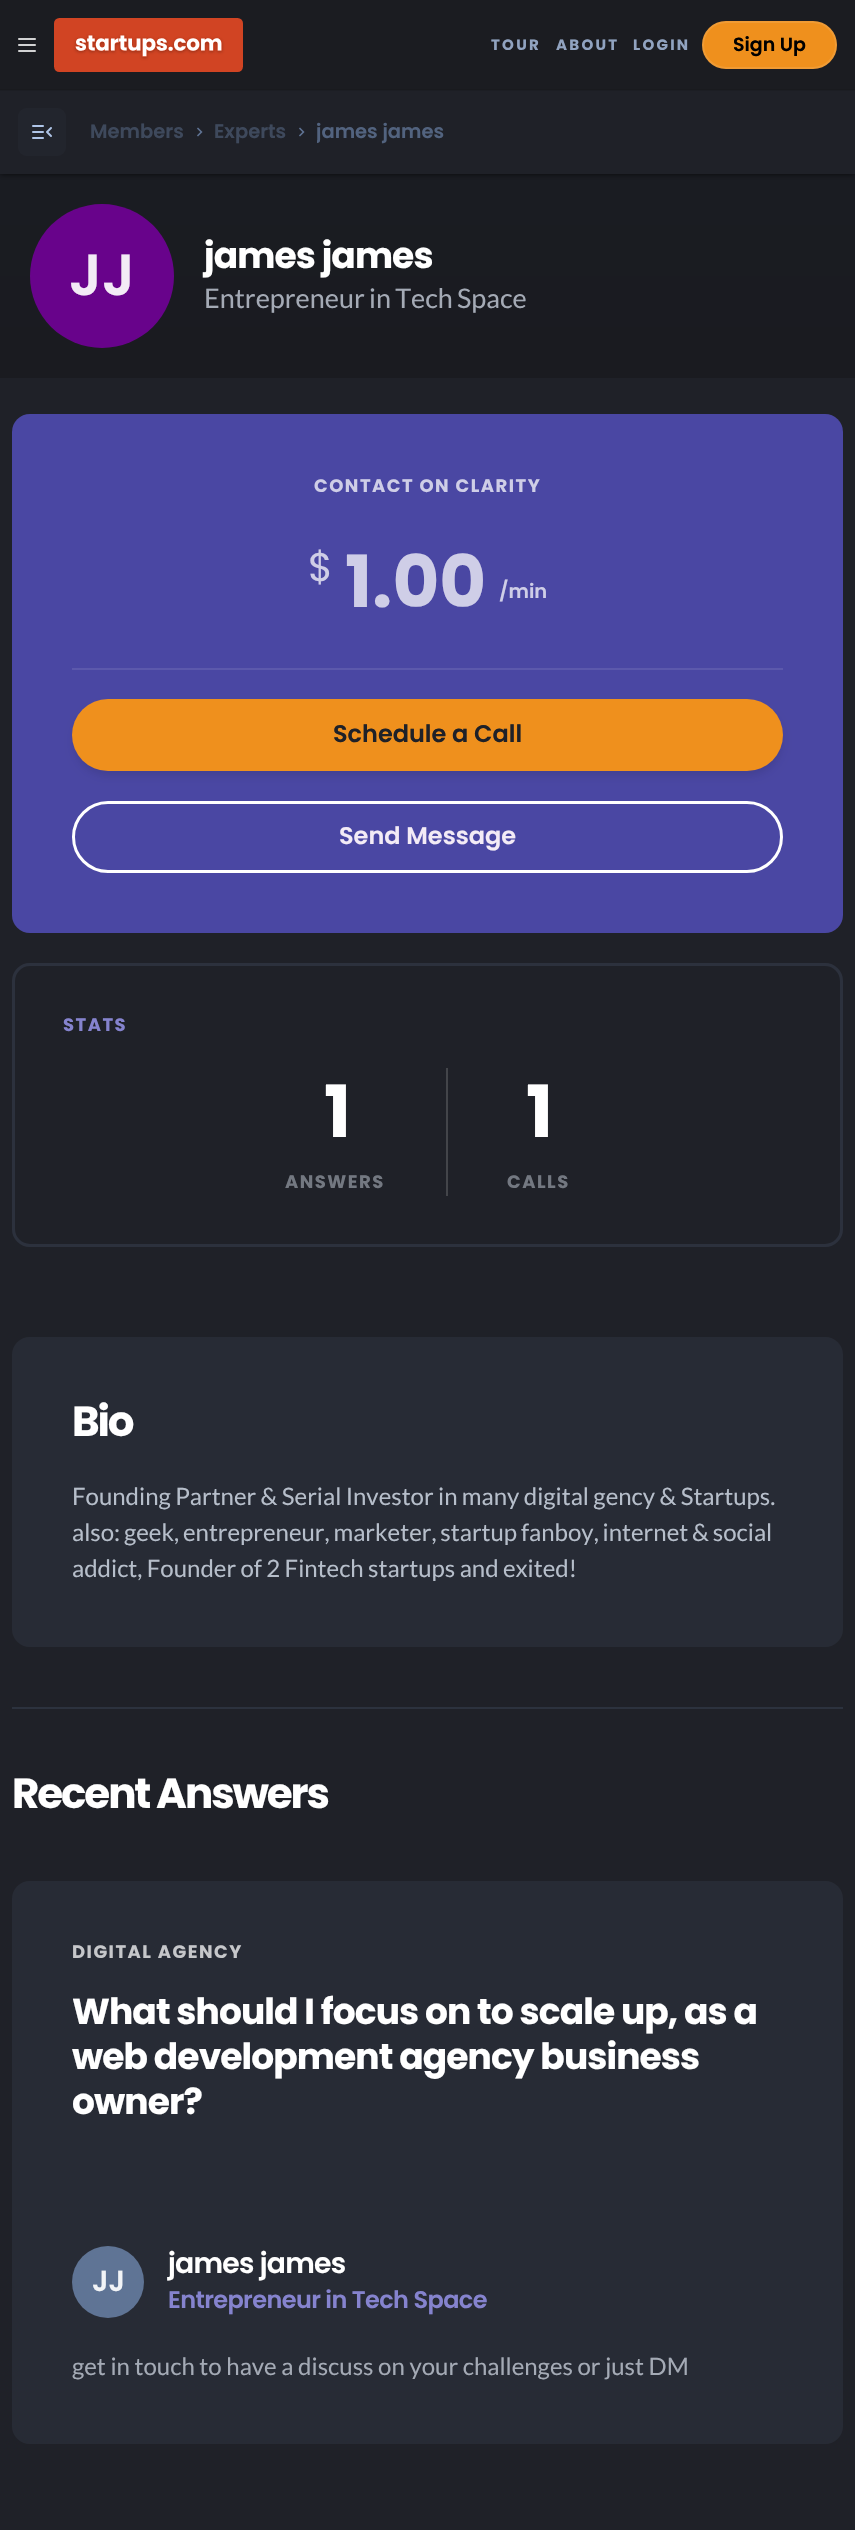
void draw(SkCanvas* canvas) {
	SkPaint fill;
	fill.setAntiAlias(true);
	auto makeFont = [&](const char* family, int weight, float size, bool italic = false) {
		SkFontStyle style(weight, SkFontStyle::kNormal_Width,
			italic ? SkFontStyle::kItalic_Slant : SkFontStyle::kUpright_Slant);
		SkFont result(fontMgr->matchFamilyStyle(family, style), size);
		result.setSubpixel(true);
		return result;
	};
	auto text = [&](const char* s, float x, float y, const SkFont& font) {
		canvas->drawString(s, x, y, font, fill);
	};
	auto spacedText = [&](const char* s, float x, float y, const SkFont& font, const SkPaint& ink, float letter, float word) {
		std::vector<SkGlyphID> glyphs(font.countText(s, strlen(s), SkTextEncoding::kUTF8));
		std::vector<float> xs(glyphs.size());
		font.textToGlyphs(s, strlen(s), SkTextEncoding::kUTF8, glyphs);
		font.getXPos(glyphs, xs, x);
		float extra = 0;
		for (size_t i = 0; i < glyphs.size(); i++) {
			xs[i] += extra;
			extra += letter + word * (glyphs[i] == font.unicharToGlyph(' '));
		}
		canvas->drawTextBlob(SkTextBlob::MakeFromPosHGlyphs(glyphs, xs, y, font), 0, 0, ink);
	};
	auto box = [&](float l, float t, float r, float b) {
		canvas->drawRect(SkRect::MakeLTRB(l, t, r, b), fill);
	};
	auto roundBox = [&](float l, float t, float r, float b, float radius) {
		canvas->drawRoundRect(SkRect::MakeLTRB(l, t, r, b), radius, radius, fill);
	};
	auto picture = [&](const char* path, float l, float t, float r, float b) {
		auto image = SkImages::DeferredFromEncodedData(SkData::MakeFromFileName(path));
		canvas->drawImageRect(image, SkRect::MakeLTRB(l, t, r, b), SkSamplingOptions());
	};
	canvas->clear(0xFF1F2128);
	{
		const SkColor colors[] = {0xFF1A1C22, 0xFF1A1B20};
		const float stops[] = {0, 1};
		const SkPoint ends[] = {{428, 174}, {428, 378}};
		fill.setShader(SkGradientShader::MakeLinear(ends, colors, stops, 2, SkTileMode::kClamp));
		fill.setAlpha(255);
	}
	box(0, 174, 855, 378);
	canvas->save();
	canvas->clipRect(SkRect::MakeLTRB(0, 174, 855, 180));
	fill.setShader(nullptr);
	fill.setColor(0xB3000000);
	fill.setMaskFilter(SkMaskFilter::MakeBlur(kNormal_SkBlurStyle, 3));
	canvas->drawRect(SkRect::MakeLTRB(0, 90, 855, 174), fill);
	fill.setMaskFilter(nullptr);
	canvas->restore();
	fill.setColor(0xFF1B1C21);
	box(0, 0, 855, 90);
	fill.setColor(0x1A000000);
	box(0, 89, 855, 91);
	picture("image0.png", 18, 38, 36, 52);
	picture("image1.png", 54, 18, 243, 72);
	fill.setColor(0xFFEF901D);
	roundBox(702, 21, 837, 69, 24);
	fill.setStyle(SkPaint::kStroke_Style);
	fill.setStrokeWidth(2);
	fill.setColor(0x1AFFFFFF);
	canvas->drawRoundRect(SkRect::MakeLTRB(703, 22, 836, 68), 23, 23, fill);
	fill.setStyle(SkPaint::kFill_Style);
	fill.setColor(0xFF22252D);
	roundBox(18, 108, 66, 156, 9);
	picture("image2.png", 32, 125, 52, 139);
	picture("image3.png", 197, 127, 203, 137);
	picture("image3.png", 299, 127, 305, 137);
	fill.setColor(0xFF68038B);
	canvas->drawCircle(102, 276, 72, fill);
	fill.setColor(0xFF4A47A3);
	roundBox(12, 414, 843, 933, 18);
	fill.setColor(0xFF5C59AC);
	box(72, 668, 783, 670);
	fill.setColor(0x1A000000);
	fill.setMaskFilter(SkMaskFilter::MakeBlur(kNormal_SkBlurStyle, 4.5f));
	canvas->drawRoundRect(SkRect::MakeLTRB(74, 707, 782, 776), 34.5f, 34.5f, fill);
	fill.setMaskFilter(nullptr);
	fill.setColor(0xFFEF901D);
	roundBox(72, 699, 783, 771, 36);
	fill.setStyle(SkPaint::kStroke_Style);
	fill.setStrokeWidth(3);
	fill.setColor(0xFFFFFFFF);
	canvas->drawRoundRect(SkRect::MakeLTRB(73.5f, 802.5f, 781.5f, 871.5f), 34.5f, 34.5f, fill);
	fill.setColor(0xFF2C313D);
	canvas->drawRoundRect(SkRect::MakeLTRB(13.5f, 964.5f, 841.5f, 1245.5f), 16.5f, 16.5f, fill);
	fill.setStyle(SkPaint::kFill_Style);
	fill.setColor(0xFF43454A);
	box(446, 1068, 448, 1196);
	fill.setColor(0xFF272B35);
	roundBox(12, 1337, 843, 1647, 18);
	fill.setColor(0xFF2C323E);
	box(12, 1707, 843, 1709);
	fill.setColor(0xFF272B35);
	roundBox(12, 1881, 843, 2444, 18);
	fill.setColor(0xFF5F7495);
	canvas->drawCircle(108, 2282, 36, fill);
	auto font1 = makeFont("Poppins", 700, 15);
	fill.setColor(0xFF91A3C0);
	spacedText("TOUR", 491, 50, font1, fill, 2.25f, 0);
	spacedText("ABOUT", 556, 50, font1, fill, 2.25f, 0);
	spacedText("LOGIN", 633, 50, font1, fill, 2.25f, 0);
	auto font2 = makeFont("Poppins", 600, 19);
	fill.setColor(0xFF000000);
	text("Sign Up", 733, 51, font2);
	auto font3 = makeFont("Poppins", 600, 19.5f);
	fill.setColor(0xFF3E495C);
	text("Members", 90, 138, font3);
	text("Experts", 214, 138, font3);
	canvas->save();
	canvas->clipRect(SkRect::MakeLTRB(317, 117, 444, 147));
	fill.setColor(0xFF52637F);
	text("james james", 316, 138, font3);
	canvas->restore();
	auto font4 = makeFont("Poppins", 600, 58);
	fill.setColor(0xFFF3EBF6);
	text("JJ", 69, 295, font4);
	auto font5 = makeFont("Poppins", 700, 36);
	fill.setColor(0xFFFFFFFF);
	spacedText("james james", 204, 268, font5, fill, -0.9f, 0);
	auto font6 = makeFont("Lato", 400, 27);
	fill.setColor(0xFFA4AAB5);
	spacedText("Entrepreneur in Tech Space", 204, 308, font6, fill, 0, -1);
	auto font7 = makeFont("Poppins", 700, 18);
	fill.setColor(0xFFCFCEE7);
	spacedText("CONTACT ON CLARITY", 314, 492, font7, fill, 1.5f, 0);
	auto font8 = makeFont("Poppins", 400, 40);
	text("$", 308, 581, font8);
	auto font9 = makeFont("Poppins", 700, 72);
	text("1.00", 345, 607, font9);
	text("/min", 499, 598, font3);
	auto font10 = makeFont("Poppins", 600, 24);
	fill.setColor(0xFF1F2128);
	text("Schedule a Call", 333, 742, font10);
	fill.setColor(0xFFF3EBF6);
	text("Send Message", 339, 844, font10);
	fill.setColor(0xFF8583CE);
	spacedText("STATS", 63, 1031, font7, fill, 1.5f, 0);
	fill.setColor(0xFFFFFFFF);
	spacedText("1", 324, 1137, font9, fill, -4, 0);
	fill.setColor(0xFF737881);
	spacedText("ANSWERS", 285, 1188, font7, fill, 1.5f, 0);
	fill.setColor(0xFFFFFFFF);
	spacedText("1", 526, 1137, font9, fill, -4, 0);
	fill.setColor(0xFF737881);
	spacedText("CALLS", 507, 1188, font7, fill, 1.5f, 0);
	auto font11 = makeFont("Poppins", 700, 42);
	fill.setColor(0xFFFFFFFF);
	spacedText("Bio", 72, 1436, font11, fill, -2.1f, 0);
	auto font12 = makeFont("Lato", 400, 24);
	fill.setColor(0xFFB6BECA);
	spacedText("Founding Partner & Serial Investor in many digital gency & Startups.", 72, 1505, font12, fill, 0, -0.25f);
	spacedText("also: geek, entrepreneur, marketer, startup fanboy, internet & social", 72, 1541, font12, fill, 0, -0.75f);
	spacedText("addict, Founder of 2 Fintech startups and exited!", 72, 1577, font12, fill, 0, -0.25f);
	fill.setColor(0xFFFFFFFF);
	spacedText("Recent Answers", 12, 1808, font11, fill, -2.1f, 0);
	fill.setColor(0xFFC6C7CA);
	spacedText("DIGITAL AGENCY", 72, 1958, font7, fill, 1.5f, 0);
	fill.setColor(0xFFFFFFFF);
	spacedText("What should I focus on to scale up, as a", 72, 2024, font5, fill, -0.9f, 0);
	spacedText("web development agency business", 72, 2069, font5, fill, -0.9f, 0);
	spacedText("owner?", 72, 2114, font5, fill, -0.9f, 0);
	auto font13 = makeFont("Poppins", 600, 29);
	fill.setColor(0xFFF2F4F7);
	text("JJ", 92, 2291, font13);
	auto font14 = makeFont("Poppins", 600, 28.25f);
	fill.setColor(0xFFFFFFFF);
	spacedText("james james", 168, 2273, font14, fill, -0.75f, 0);
	fill.setColor(0xFF8583CE);
	spacedText("Entrepreneur in Tech Space", 168, 2308, font10, fill, -0.6f, 0);
	fill.setColor(0xFFA4AAB5);
	text("get in touch to have a discuss on your challenges or just DM", 72, 2375, font12);
}
